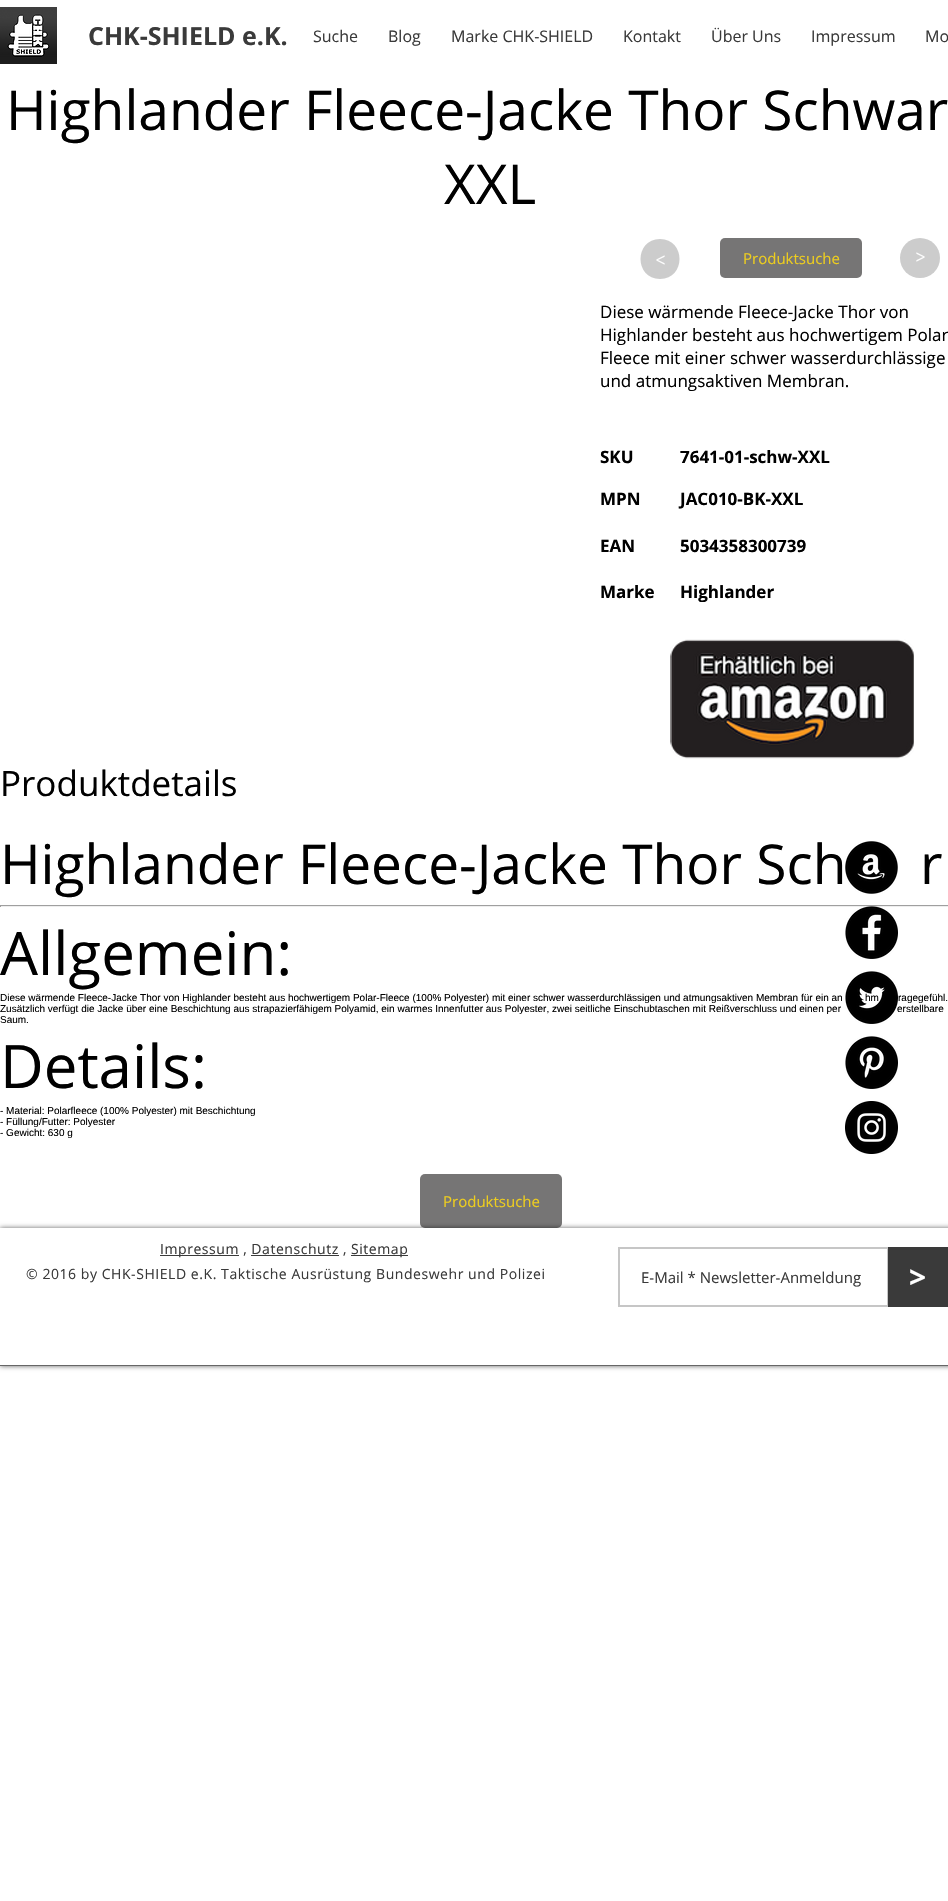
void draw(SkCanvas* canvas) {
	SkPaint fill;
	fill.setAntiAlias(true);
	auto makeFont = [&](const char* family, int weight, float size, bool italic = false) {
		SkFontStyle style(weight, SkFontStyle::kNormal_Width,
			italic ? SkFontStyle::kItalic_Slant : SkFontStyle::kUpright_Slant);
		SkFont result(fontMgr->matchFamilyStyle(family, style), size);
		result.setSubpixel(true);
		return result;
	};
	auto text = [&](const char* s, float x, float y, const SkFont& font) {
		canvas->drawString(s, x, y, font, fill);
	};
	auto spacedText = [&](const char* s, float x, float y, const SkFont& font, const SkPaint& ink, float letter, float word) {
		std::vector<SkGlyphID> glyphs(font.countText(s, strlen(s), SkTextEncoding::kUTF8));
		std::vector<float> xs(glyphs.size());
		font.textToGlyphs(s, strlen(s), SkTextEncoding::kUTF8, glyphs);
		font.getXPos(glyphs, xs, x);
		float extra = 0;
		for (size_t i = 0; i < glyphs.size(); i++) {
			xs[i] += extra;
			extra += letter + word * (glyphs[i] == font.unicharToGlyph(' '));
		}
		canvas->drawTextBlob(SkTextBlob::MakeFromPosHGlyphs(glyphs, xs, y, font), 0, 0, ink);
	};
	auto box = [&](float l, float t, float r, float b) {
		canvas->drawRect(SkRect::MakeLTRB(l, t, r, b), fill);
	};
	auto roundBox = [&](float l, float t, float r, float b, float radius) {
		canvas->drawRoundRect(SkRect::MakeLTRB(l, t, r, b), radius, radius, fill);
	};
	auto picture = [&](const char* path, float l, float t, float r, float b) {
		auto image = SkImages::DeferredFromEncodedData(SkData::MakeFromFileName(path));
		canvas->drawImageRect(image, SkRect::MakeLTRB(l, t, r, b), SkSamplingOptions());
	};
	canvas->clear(0xFFFFFFFF);
	picture("image0.png", 0, 7, 57, 64);
	fill.setColor(0xFFCCCCCC);
	canvas->drawPath(SkPathBuilder().moveTo(660, 279).cubicTo(634, 279, 634, 239, 660, 239).cubicTo(686, 239, 686, 279, 660, 279).close().detach(), fill);
	fill.setColor(0xFF767575);
	roundBox(720, 238, 862, 278, 5);
	fill.setColor(0xFFCCCCCC);
	canvas->drawCircle(920, 258, 20, fill);
	picture("image1.png", 670, 639, 914, 759);
	fill.setColor(0xFF9F9F9F);
	box(0, 905, 948, 906);
	fill.setColor(0xFFEEEEEE);
	box(0, 906, 948, 907);
	fill.setColor(0xFF9F9F9F);
	box(0, 905, 1, 907);
	fill.setColor(0xFF767575);
	roundBox(420, 1174, 562, 1228, 5);
	picture("image2.png", 845, 841, 898, 894);
	picture("image3.png", 845, 906, 898, 959);
	picture("image5.png", 845, 1036, 898, 1089);
	picture("image6.png", 845, 1101, 898, 1154);
	canvas->save();
	canvas->clipPath(SkPathBuilder(SkPathFillType::kEvenOdd).moveTo(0, 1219).lineTo(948, 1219).lineTo(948, 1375).lineTo(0, 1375).close().moveTo(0, 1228).lineTo(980, 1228).lineTo(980, 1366).lineTo(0, 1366).close().detach(), true);
	fill.setColor(0x99000000);
	fill.setMaskFilter(SkMaskFilter::MakeBlur(kNormal_SkBlurStyle, 2.5f));
	canvas->drawRect(SkRect::MakeLTRB(0, 1228, 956, 1366), fill);
	fill.setMaskFilter(nullptr);
	canvas->restore();
	fill.setColor(0xFF666666);
	box(0, 1365, 948, 1366);
	fill.setColor(0xFF3A3A3A);
	box(160, 1255, 239, 1256);
	box(251, 1255, 339, 1256);
	box(351, 1255, 408, 1256);
	fill.setStyle(SkPaint::kStroke_Style);
	fill.setStrokeWidth(2);
	fill.setColor(0xFFC6C6C6);
	canvas->drawRect(SkRect::MakeLTRB(619, 1248, 888, 1306), fill);
	fill.setStyle(SkPaint::kFill_Style);
	fill.setColor(0xFF3A3A3A);
	box(888, 1247, 948, 1307);
	auto font1 = makeFont("Open Sans", 700, 25);
	text("CHK-SHIELD e.K.", 88, 45, font1);
	auto font2 = makeFont("Open Sans", 400, 16);
	text("Suche", 313, 42, font2);
	text("Blog", 388, 42, font2);
	text("Marke CHK-SHIELD", 451, 42, font2);
	text("Kontakt", 623, 42, font2);
	text("Über Uns", 711, 42, font2);
	text("Impressum", 811, 42, font2);
	text("Mo", 925, 42, font2);
	auto font3 = makeFont("Open Sans", 400, 55);
	fill.setColor(0xFF000000);
	text("Highlander Fleece-Jacke Thor Schwar", 6, 130, font3);
	text("XXL", 444, 204, font3);
	auto font4 = makeFont("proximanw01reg", 400, 18);
	fill.setColor(0xFFFFFFFF);
	canvas->save();
	canvas->rotate(180, 665, 254);
	text(">", 665, 254, font4);
	canvas->restore();
	auto font5 = makeFont("Open Sans", 400, 15);
	fill.setColor(0xFFEDCD1F);
	text("Produktsuche", 743, 264, font5);
	fill.setColor(0xFFFFFFFF);
	text(">", 916, 263, font4);
	auto font6 = makeFont("Open Sans", 400, 17);
	fill.setColor(0xFF000000);
	text("Diese wärmende Fleece-Jacke Thor von", 600, 318, font6);
	text("Highlander besteht aus hochwertigem Polar", 600, 341, font6);
	text("Fleece mit einer schwer wasserdurchlässige", 600, 364, font6);
	text("und atmungsaktiven Membran.", 600, 387, font6);
	auto font7 = makeFont("Open Sans", 700, 17);
	text("SKU", 600, 463, font7);
	text("7641-01-schw-XXL", 680, 463, font7);
	text("MPN", 600, 505, font7);
	text("JAC010-BK-XXL", 680, 505, font7);
	text("EAN", 600, 552, font7);
	text("5034358300739", 680, 552, font7);
	text("Marke", 600, 598, font7);
	text("Highlander", 680, 598, font7);
	auto font8 = makeFont("Open Sans", 400, 35);
	text("Produktdetails", 0, 796, font8);
	text("Highlander Fleece-Jacke Thor Sch", 0, 884, font3);
	text("r", 920, 884, font3);
	auto font9 = makeFont("Open Sans", 400, 60);
	text("Allgemein:", 0, 975, font9);
	auto font10 = makeFont("Liberation Sans", 400, 10);
	text("Diese wärmende Fleece-Jacke Thor von Highlander besteht aus hochwertigem Polar-Fleece (100% Polyester) mit einer schwer wasserdurchlässigen und atmungsaktiven Membran für ein an", 0, 1001, font10);
	text("hm", 865, 1001, font10);
	text("ragegefühl.", 898, 1001, font10);
	text("Zusätzlich verfügt die Jacke über eine Beschichtung aus strapazierfähigem Polyamid, ein warmes Innenfutter aus Polyester, zwei seitliche Einschubtaschen mit Reißverschluss und einen per", 0, 1012, font10);
	text("erstellbare", 897, 1012, font10);
	text("Saum.", 0, 1023, font10);
	text("Details:", 0, 1088, font9);
	text("- Material: Polarfleece (100% Polyester) mit Beschichtung", 0, 1114, font10);
	text("- Füllung/Futter: Polyester", 0, 1125, font10);
	text("- Gewicht: 630 g", 0, 1136, font10);
	fill.setColor(0xFFEDCD1F);
	text("Produktsuche", 443, 1207, font5);
	picture("image4.png", 845, 971, 898, 1024);
	auto font11 = makeFont("Open Sans", 400, 14);
	fill.setColor(0xFF3A3A3A);
	spacedText("Impressum , Datenschutz ,", 160, 1254, font11, fill, 0.55f, 0);
	spacedText("Sitemap", 351, 1254, font11, fill, 0.55f, 0);
	spacedText("© 2016 by CHK-SHIELD e.K. Taktische Ausrüstung Bundeswehr und Polizei", 26, 1279, font11, fill, 0.55f, 0);
	text("E-Mail * Newsletter-Anmeldung", 641, 1283, font5);
	auto font12 = makeFont("Open Sans", 700, 30);
	fill.setColor(0xFFFFFFFF);
	text(">", 909, 1288, font12);
}
